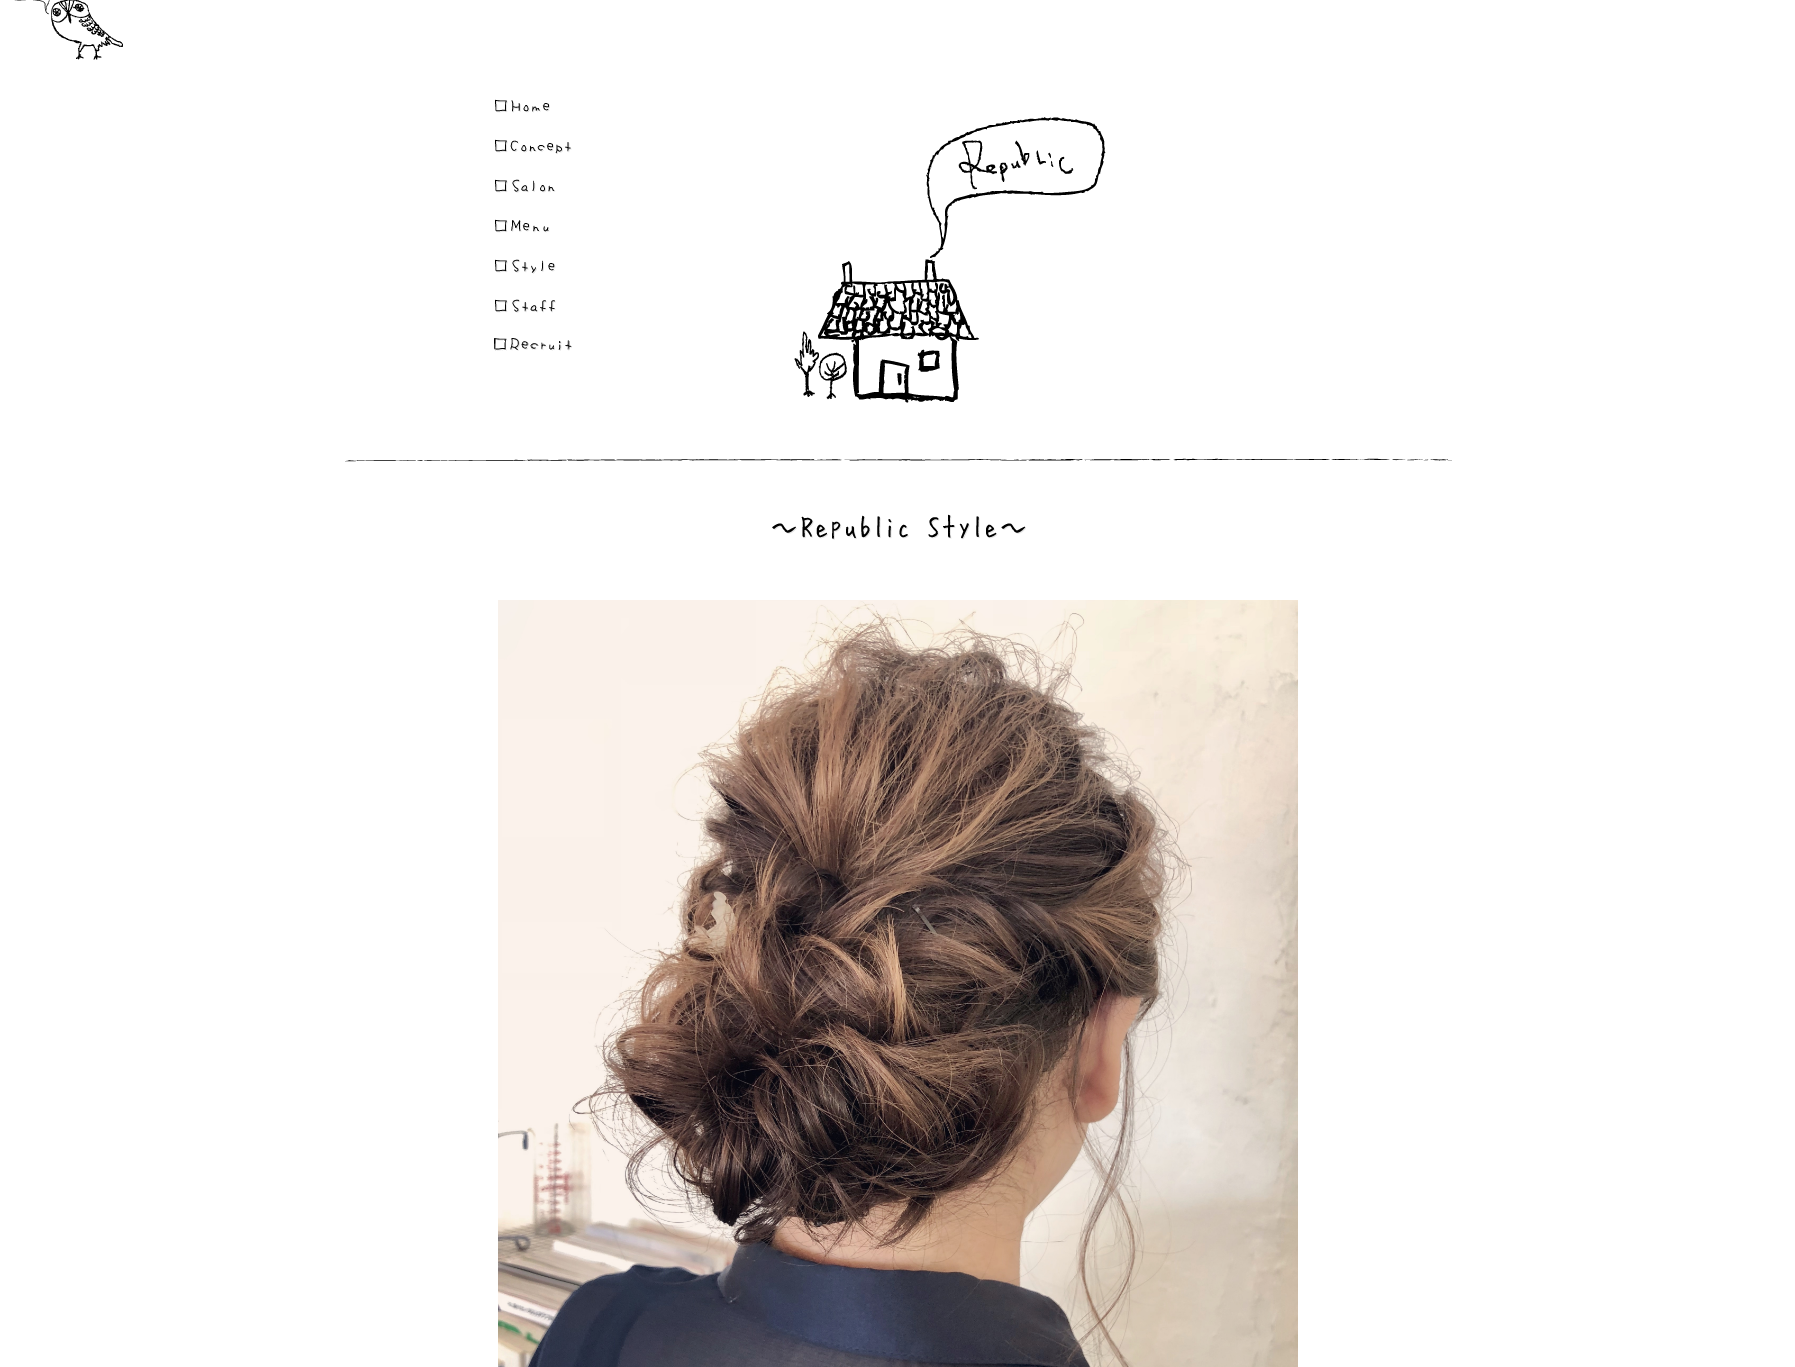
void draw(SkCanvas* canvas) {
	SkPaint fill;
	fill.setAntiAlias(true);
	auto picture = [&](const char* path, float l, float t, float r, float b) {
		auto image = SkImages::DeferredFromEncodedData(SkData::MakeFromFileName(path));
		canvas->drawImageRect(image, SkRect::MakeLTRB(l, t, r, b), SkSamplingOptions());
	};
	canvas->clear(0xFFFFFFFF);
	picture("image0.png", 14, 0, 123, 60);
	picture("image1.png", 794, 117, 1106, 403);
	picture("image2.png", 495, 99, 550, 113);
	picture("image3.png", 495, 139, 572, 154);
	picture("image4.png", 495, 179, 556, 193);
	picture("image5.png", 495, 219, 550, 233);
	picture("image6.png", 495, 259, 556, 274);
	picture("image7.png", 495, 299, 556, 313);
	picture("image8.png", 494, 338, 572, 351);
	picture("image9.png", 345, 458, 1452, 462);
	picture("image10.png", 772, 514, 1026, 540);
	picture("image11.png", 498, 600, 1298, 1367);
}
